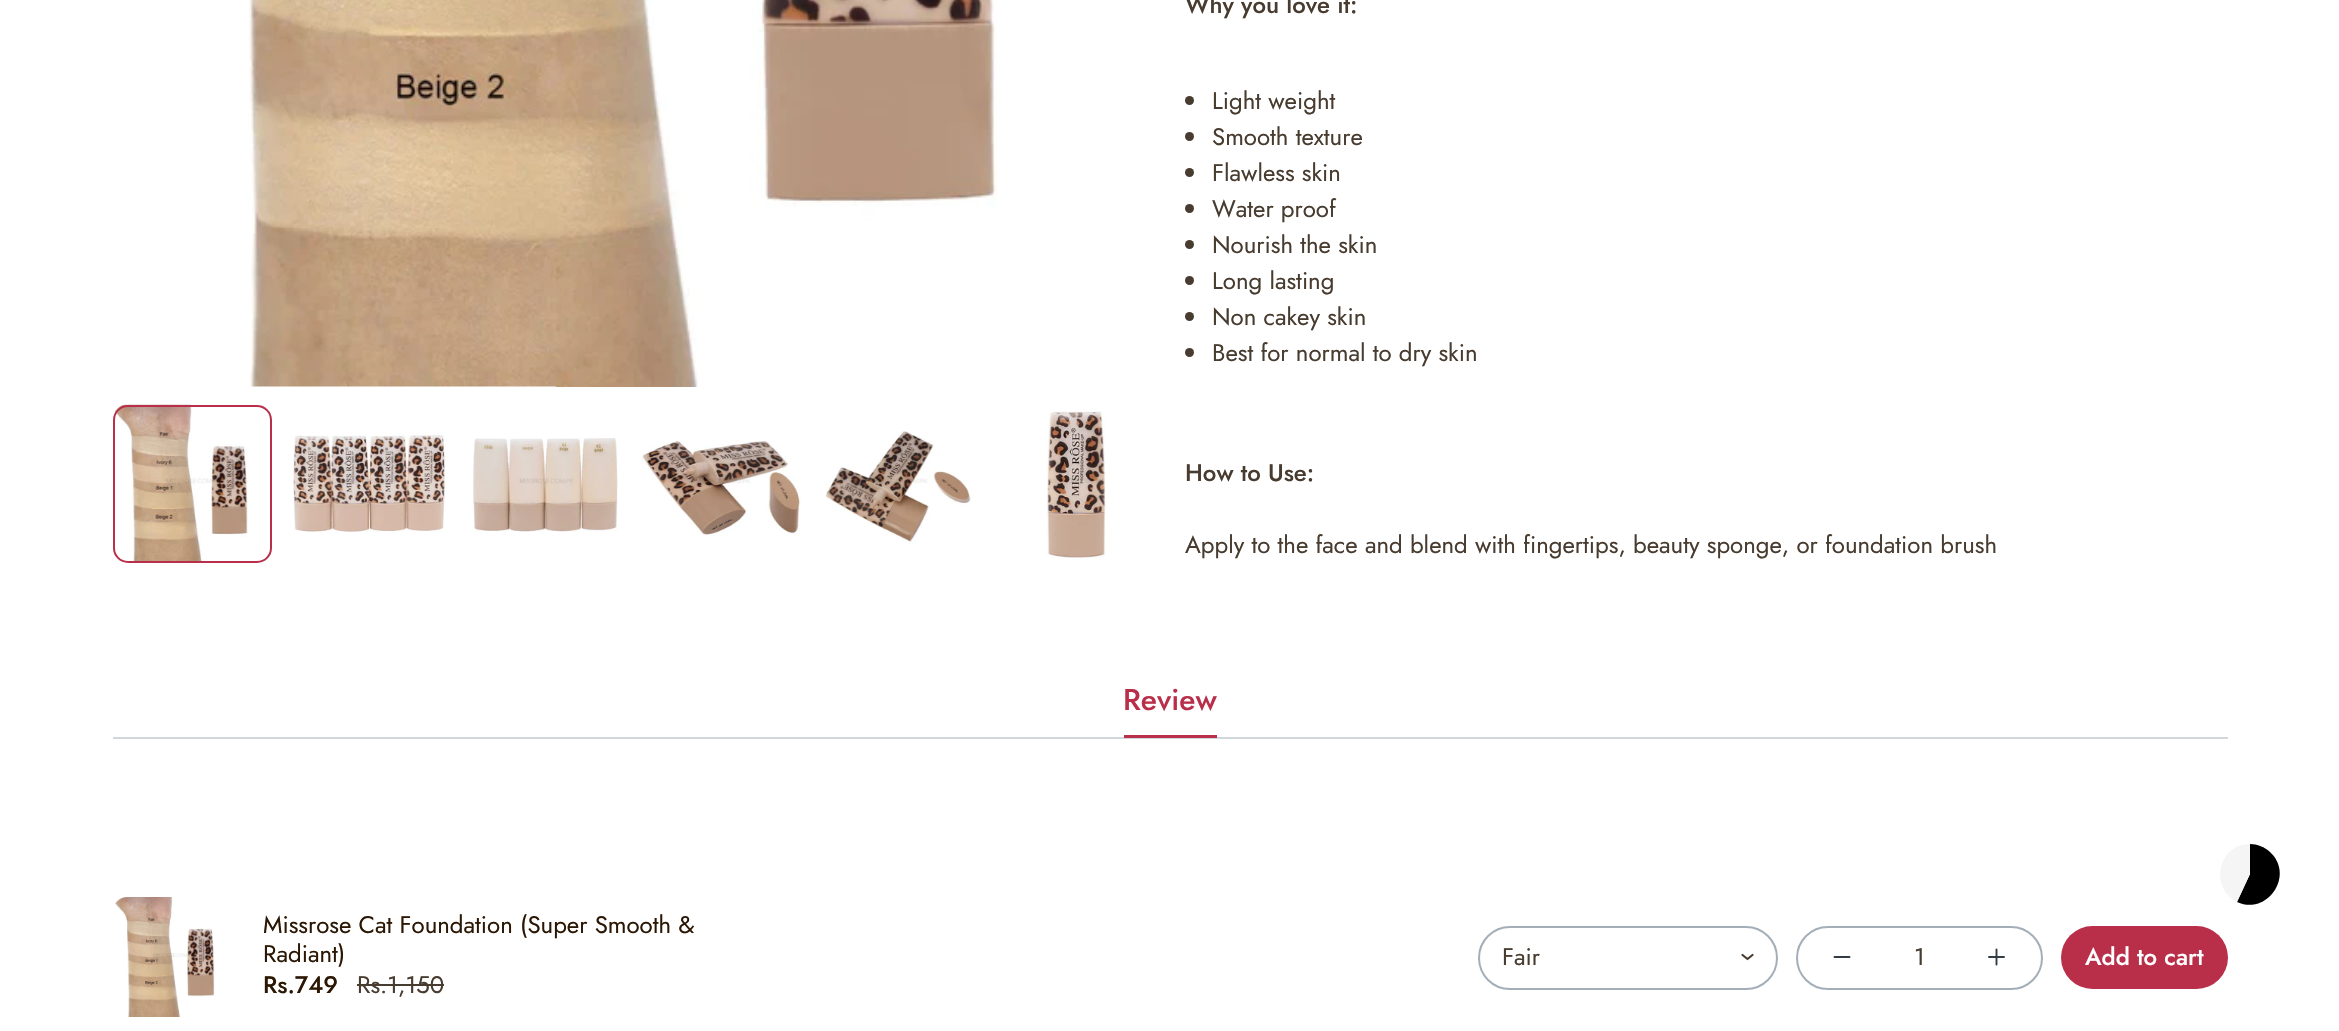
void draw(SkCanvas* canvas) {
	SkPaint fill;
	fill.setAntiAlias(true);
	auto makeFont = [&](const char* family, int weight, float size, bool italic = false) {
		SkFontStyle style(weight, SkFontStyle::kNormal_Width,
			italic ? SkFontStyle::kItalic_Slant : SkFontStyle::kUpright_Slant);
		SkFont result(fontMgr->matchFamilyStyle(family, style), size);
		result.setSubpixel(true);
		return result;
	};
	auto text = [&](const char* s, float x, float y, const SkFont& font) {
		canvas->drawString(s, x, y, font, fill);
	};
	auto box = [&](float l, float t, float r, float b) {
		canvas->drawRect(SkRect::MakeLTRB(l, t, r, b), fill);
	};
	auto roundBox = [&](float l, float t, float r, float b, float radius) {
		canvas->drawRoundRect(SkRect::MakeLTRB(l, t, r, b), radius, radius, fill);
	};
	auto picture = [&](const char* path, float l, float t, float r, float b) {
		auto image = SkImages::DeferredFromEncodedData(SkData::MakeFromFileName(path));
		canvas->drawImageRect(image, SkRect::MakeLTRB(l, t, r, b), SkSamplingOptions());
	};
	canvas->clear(0xFFFFFFFF);
	picture("image0.png", 249, 0, 997, 387);
	picture("image1.png", 115, 404, 248, 561);
	fill.setStyle(SkPaint::kStroke_Style);
	fill.setStrokeWidth(2);
	fill.setColor(0xFFB92E49);
	canvas->drawRoundRect(SkRect::MakeLTRB(114, 406, 271, 562), 14, 14, fill);
	picture("image2.png", 293, 435, 447, 532);
	picture("image3.png", 472, 438, 618, 532);
	picture("image4.png", 642, 441, 801, 535);
	picture("image5.png", 825, 431, 972, 544);
	picture("image6.png", 1046, 411, 1106, 559);
	fill.setStyle(SkPaint::kFill_Style);
	fill.setColor(0xFF483B2F);
	canvas->drawCircle(1189.5f, 100.5f, 4.5f, fill);
	canvas->drawCircle(1189.5f, 136.5f, 4.5f, fill);
	canvas->drawCircle(1189.5f, 172.5f, 4.5f, fill);
	canvas->drawCircle(1189.5f, 208.5f, 4.5f, fill);
	canvas->drawCircle(1189.5f, 244.5f, 4.5f, fill);
	canvas->drawCircle(1189.5f, 280.5f, 4.5f, fill);
	canvas->drawCircle(1189.5f, 316.5f, 4.5f, fill);
	canvas->drawCircle(1189.5f, 352.5f, 4.5f, fill);
	picture("image7.png", 115, 897, 215, 1017);
	box(357, 984, 444, 986);
	fill.setStyle(SkPaint::kStroke_Style);
	fill.setColor(0xFFA3AEB9);
	canvas->drawRoundRect(SkRect::MakeLTRB(1479, 927, 1777, 989), 31, 31, fill);
	fill.setStrokeWidth(2.2f);
	fill.setStrokeCap(SkPaint::kRound_Cap);
	fill.setStrokeJoin(SkPaint::kRound_Join);
	fill.setColor(0xFF483B2F);
	canvas->drawPath(SkPathBuilder().moveTo(1742.5f, 955).lineTo(1747.5f, 959).lineTo(1752.5f, 955).detach(), fill);
	fill.setStrokeWidth(2);
	fill.setStrokeCap(SkPaint::kButt_Cap);
	fill.setStrokeJoin(SkPaint::kMiter_Join);
	fill.setColor(0xFFA3AEB9);
	canvas->drawRoundRect(SkRect::MakeLTRB(1797, 927, 2042, 989), 31, 31, fill);
	fill.setStrokeWidth(1.9f);
	fill.setStrokeCap(SkPaint::kRound_Cap);
	fill.setColor(0xFF333C45);
	canvas->drawPath(SkPathBuilder().moveTo(1834.5f, 957).lineTo(1849.5f, 957).detach(), fill);
	canvas->drawPath(SkPathBuilder().moveTo(1989, 957).lineTo(2004, 957).moveTo(1996.5f, 964.5f).lineTo(1996.5f, 949.5f).detach(), fill);
	fill.setStyle(SkPaint::kFill_Style);
	fill.setColor(0xFFB92E49);
	roundBox(2061, 926, 2228, 989, 31.5f);
	fill.setColor(0xFFD1D7DD);
	box(113, 737, 2228, 739);
	fill.setColor(0xFFB92E49);
	box(1124, 735, 1217, 738);
	fill.setColor(0xFF000000);
	canvas->drawPath(SkPathBuilder().moveTo(2250, 874).lineTo(2250, 844).cubicTo(2257, 844, 2265, 847, 2270, 852).cubicTo(2295, 875, 2268, 916, 2237, 902).close().detach(), fill);
	fill.setColor(0xFFF5F5F5);
	canvas->drawPath(SkPathBuilder().moveTo(2250, 874).lineTo(2237, 902).cubicTo(2209, 888, 2218, 844, 2250, 844).close().detach(), fill);
	auto font1 = makeFont("Jost", 500, 24);
	fill.setColor(0xFF483B2F);
	text("Why you love it:", 1185, 13, font1);
	auto font2 = makeFont("Jost", 400, 24);
	text("Light weight", 1212, 109, font2);
	text("Smooth texture", 1212, 145, font2);
	text("Flawless skin", 1212, 181, font2);
	text("Water proof", 1212, 217, font2);
	text("Nourish the skin", 1212, 253, font2);
	text("Long lasting", 1212, 289, font2);
	text("Non cakey skin", 1212, 325, font2);
	text("Best for normal to dry skin", 1212, 361, font2);
	text("How to Use:", 1185, 481, font1);
	text("Apply to the face and blend with fingertips, beauty sponge, or foundation brush", 1185, 553, font2);
	fill.setColor(0xFF2B1703);
	text("Missrose Cat Foundation (Super Smooth &", 263, 933, font2);
	text("Radiant)", 263, 962, font2);
	text("Rs.749", 263, 993, font1);
	fill.setColor(0xFF483B2F);
	text("Rs.1,150", 357, 993, font2);
	text("Fair", 1502, 965, font2);
	text("1", 1914, 965, font2);
	fill.setColor(0xFFFFFFFF);
	text("Add to cart", 2085, 965, font1);
	auto font3 = makeFont("Jost", 500, 30);
	fill.setColor(0xFFB92E49);
	text("Review", 1123, 710, font3);
}
